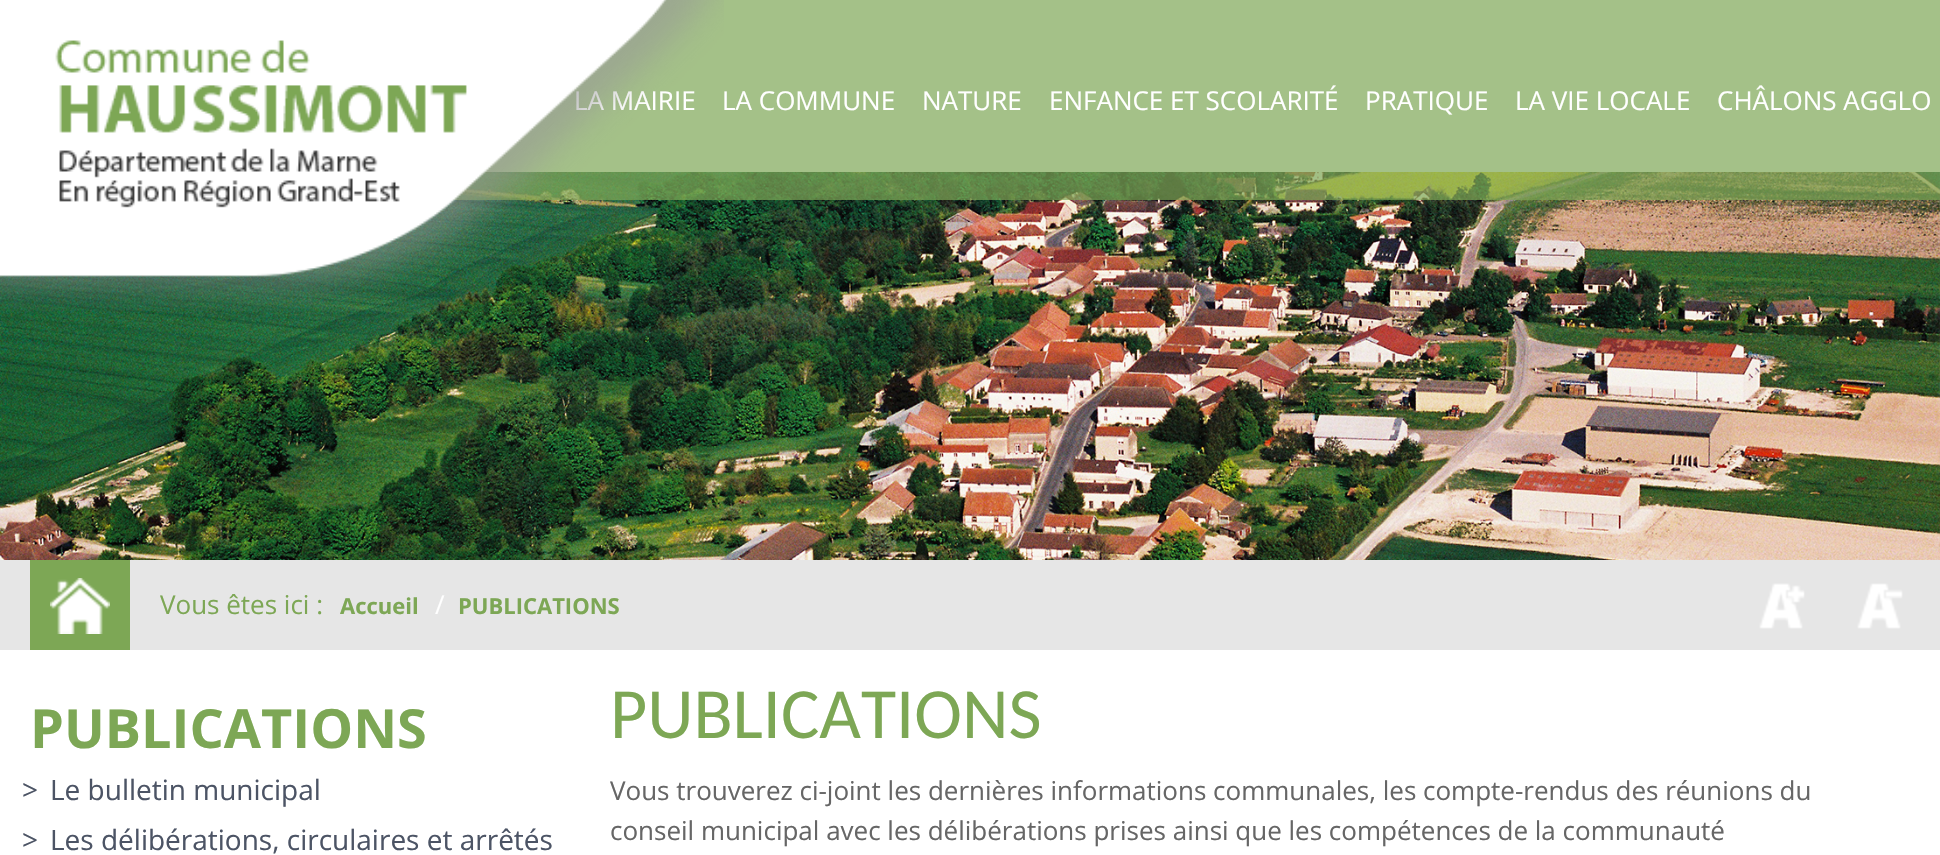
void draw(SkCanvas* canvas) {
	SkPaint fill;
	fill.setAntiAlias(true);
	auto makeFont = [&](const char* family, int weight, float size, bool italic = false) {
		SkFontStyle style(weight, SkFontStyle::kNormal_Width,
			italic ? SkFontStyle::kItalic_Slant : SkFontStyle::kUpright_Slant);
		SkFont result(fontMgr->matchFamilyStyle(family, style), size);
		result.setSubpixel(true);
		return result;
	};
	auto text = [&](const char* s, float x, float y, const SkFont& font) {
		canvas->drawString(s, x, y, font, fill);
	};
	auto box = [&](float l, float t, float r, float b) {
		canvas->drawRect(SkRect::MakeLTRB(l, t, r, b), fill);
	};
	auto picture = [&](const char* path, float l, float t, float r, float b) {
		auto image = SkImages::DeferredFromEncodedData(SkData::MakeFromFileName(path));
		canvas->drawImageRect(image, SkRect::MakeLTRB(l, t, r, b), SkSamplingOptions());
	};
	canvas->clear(0xFFFFFFFF);
	picture("image0.png", 0, 172, 1940, 560);
	fill.setColor(0xB37DA755);
	box(452, 0, 1940, 200);
	fill.setColor(0xFFE6E6E6);
	box(0, 560, 1940, 650);
	fill.setColor(0xFF7DA755);
	box(30, 560, 130, 650);
	picture("image2.png", 50, 578, 110, 634);
	picture("image3.png", 1759, 583, 1805, 629);
	picture("image4.png", 1857, 583, 1903, 629);
	auto font1 = makeFont("Open Sans", 400, 26);
	fill.setColor(0xFFFFFFFF);
	text("LA MAIRIE", 574, 110, font1);
	picture("image1.png", 0, 0, 724, 311);
	text("LA COMMUNE", 722, 110, font1);
	text("NATURE", 922, 110, font1);
	text("ENFANCE ET SCOLARITÉ", 1049, 110, font1);
	text("PRATIQUE", 1365, 110, font1);
	text("LA VIE LOCALE", 1515, 110, font1);
	text("CHÂLONS AGGLO", 1717, 110, font1);
	fill.setColor(0xFF7DA755);
	text("Vous êtes ici :", 160, 614, font1);
	auto font2 = makeFont("Open Sans", 700, 22);
	text("Accueil", 340, 614, font2);
	fill.setColor(0xFFFFFFFF);
	text("/", 435, 614, font1);
	fill.setColor(0xFF7DA755);
	text("PUBLICATIONS", 458, 614, font2);
	auto font3 = makeFont("Open Sans", 700, 54);
	text("PUBLICATIONS", 30, 748, font3);
	auto font4 = makeFont("Open Sans", 400, 28);
	fill.setColor(0xFF4C5465);
	text(">", 22, 800, font4);
	text("Le bulletin municipal", 50, 800, font4);
	text(">", 22, 850, font4);
	text("Les délibérations, circulaires et arrêtés", 50, 850, font4);
	auto font5 = makeFont("Carlito", 400, 72);
	fill.setColor(0xFF7DA755);
	text("PUBLICATIONS", 610, 738, font5);
	fill.setColor(0xFF666666);
	text("Vous trouverez ci-joint les dernières informations communales, les compte-rendus des réunions du", 610, 800, font1);
	text("conseil municipal avec les délibérations prises ainsi que les compétences de la communauté", 610, 840, font1);
}
